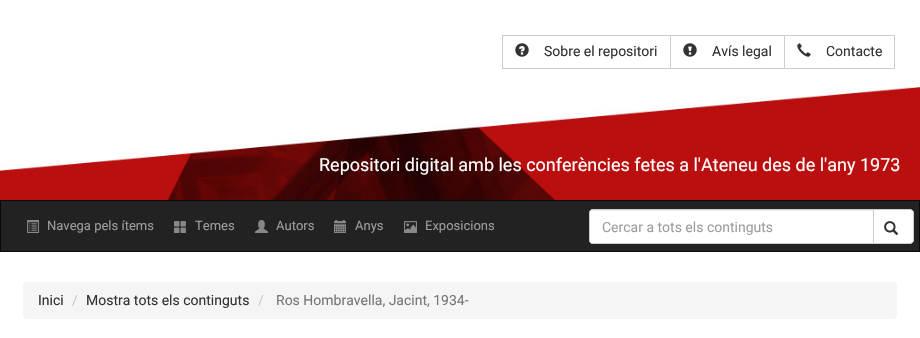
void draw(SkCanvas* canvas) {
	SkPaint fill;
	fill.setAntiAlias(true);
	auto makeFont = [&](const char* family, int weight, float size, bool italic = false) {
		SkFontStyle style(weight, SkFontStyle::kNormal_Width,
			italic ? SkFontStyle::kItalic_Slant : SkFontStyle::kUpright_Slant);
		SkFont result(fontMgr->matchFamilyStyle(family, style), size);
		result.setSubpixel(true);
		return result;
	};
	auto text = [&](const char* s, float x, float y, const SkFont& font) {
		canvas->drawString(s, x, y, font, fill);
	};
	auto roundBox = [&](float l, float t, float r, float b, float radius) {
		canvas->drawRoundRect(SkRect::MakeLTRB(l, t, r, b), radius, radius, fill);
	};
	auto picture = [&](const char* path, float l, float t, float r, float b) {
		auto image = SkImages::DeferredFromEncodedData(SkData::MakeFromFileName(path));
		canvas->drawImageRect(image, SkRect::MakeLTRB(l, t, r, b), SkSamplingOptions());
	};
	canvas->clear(0xFFFFFFFF);
	picture("image0.png", 0, 83, 920, 200);
	fill.setStyle(SkPaint::kStroke_Style);
	fill.setStrokeWidth(1);
	fill.setColor(0xFFCCCCCC);
	canvas->drawRect(SkRect::MakeLTRB(502.5f, 35.5f, 670.5f, 68.5f), fill);
	picture("image1.png", 515, 43, 529, 57);
	canvas->drawRect(SkRect::MakeLTRB(670.5f, 35.5f, 784.5f, 68.5f), fill);
	picture("image2.png", 683, 43, 697, 57);
	canvas->drawRect(SkRect::MakeLTRB(784.5f, 35.5f, 894.5f, 68.5f), fill);
	picture("image3.png", 797, 43, 811, 57);
	fill.setStyle(SkPaint::kFill_Style);
	fill.setColor(0xFF222222);
	canvas->drawRect(SkRect::MakeLTRB(0.5f, 200.5f, 919.5f, 251.5f), fill);
	fill.setStyle(SkPaint::kStroke_Style);
	fill.setColor(0xFF090909);
	canvas->drawRect(SkRect::MakeLTRB(0.5f, 200.5f, 919.5f, 251.5f), fill);
	picture("image4.png", 27, 220, 39, 233);
	picture("image5.png", 174, 221, 186, 233);
	picture("image6.png", 255, 220, 268, 233);
	picture("image7.png", 334, 220, 346, 233);
	picture("image8.png", 404, 221, 417, 233);
	fill.setStyle(SkPaint::kFill_Style);
	fill.setColor(0xFFFFFFFF);
	canvas->drawPath(SkPathBuilder().moveTo(593, 209).lineTo(874, 209).lineTo(874, 244).lineTo(593, 244).cubicTo(591, 244, 589, 242, 589, 240).lineTo(589, 213).cubicTo(589, 211, 591, 209, 593, 209).close().detach(), fill);
	fill.setColor(0xFFECECEC);
	canvas->drawPath(SkPathBuilder().moveTo(593, 211).lineTo(873, 211).lineTo(873, 210).lineTo(593, 210).cubicTo(591, 210, 590, 211, 590, 213).lineTo(590, 214).cubicTo(590, 212, 591, 211, 593, 211).close().detach(), fill);
	fill.setStyle(SkPaint::kStroke_Style);
	fill.setColor(0xFFCCCCCC);
	canvas->drawPath(SkPathBuilder().moveTo(593, 209.5f).lineTo(873.5f, 209.5f).lineTo(873.5f, 243.5f).lineTo(593, 243.5f).cubicTo(591, 243.5f, 589.5f, 242, 589.5f, 240).lineTo(589.5f, 213).cubicTo(589.5f, 211, 591, 209.5f, 593, 209.5f).close().detach(), fill);
	fill.setStyle(SkPaint::kFill_Style);
	fill.setColor(0xFFFFFFFF);
	canvas->drawPath(SkPathBuilder().moveTo(873.5f, 209.5f).lineTo(910, 209.5f).cubicTo(912, 209.5f, 913.5f, 211, 913.5f, 213).lineTo(913.5f, 240).cubicTo(913.5f, 242, 912, 243.5f, 910, 243.5f).lineTo(873.5f, 243.5f).close().detach(), fill);
	fill.setStyle(SkPaint::kStroke_Style);
	fill.setColor(0xFFCCCCCC);
	canvas->drawPath(SkPathBuilder().moveTo(873.5f, 209.5f).lineTo(910, 209.5f).cubicTo(912, 209.5f, 913.5f, 211, 913.5f, 213).lineTo(913.5f, 240).cubicTo(913.5f, 242, 912, 243.5f, 910, 243.5f).lineTo(873.5f, 243.5f).close().detach(), fill);
	picture("image9.png", 884, 221, 899, 235);
	fill.setStyle(SkPaint::kFill_Style);
	fill.setColor(0xFFF5F5F5);
	roundBox(23, 282, 897, 319, 4);
	auto font1 = makeFont("Roboto", 400, 14);
	fill.setColor(0xFF333333);
	text("Sobre el repositori", 544, 56, font1);
	text("Avís legal", 712, 56, font1);
	text("Contacte", 826, 56, font1);
	auto font2 = makeFont("Roboto", 400, 18);
	fill.setColor(0xFFFFFFFF);
	text("Repositori digital amb les conferències fetes a l'Ateneu des de l'any 1973", 319, 171, font2);
	auto font3 = makeFont("Roboto", 400, 13);
	fill.setColor(0xFF9D9D9D);
	text("Navega pels ítems", 47, 230, font3);
	text("Temes", 195, 230, font3);
	text("Autors", 276, 230, font3);
	text("Anys", 355, 230, font3);
	text("Exposicions", 425, 230, font3);
	text("Cercar a tots els continguts", 602, 232, font1);
	fill.setColor(0xFF333333);
	text("Inici", 38, 305, font1);
	fill.setColor(0xFFCCCCCC);
	text("/", 72, 305, font1);
	fill.setColor(0xFF333333);
	text("Mostra tots els continguts", 86, 305, font1);
	fill.setColor(0xFFCCCCCC);
	text("/", 258, 305, font1);
	fill.setColor(0xFF777777);
	text("Ros Hombravella, Jacint, 1934-", 276, 305, font1);
}
